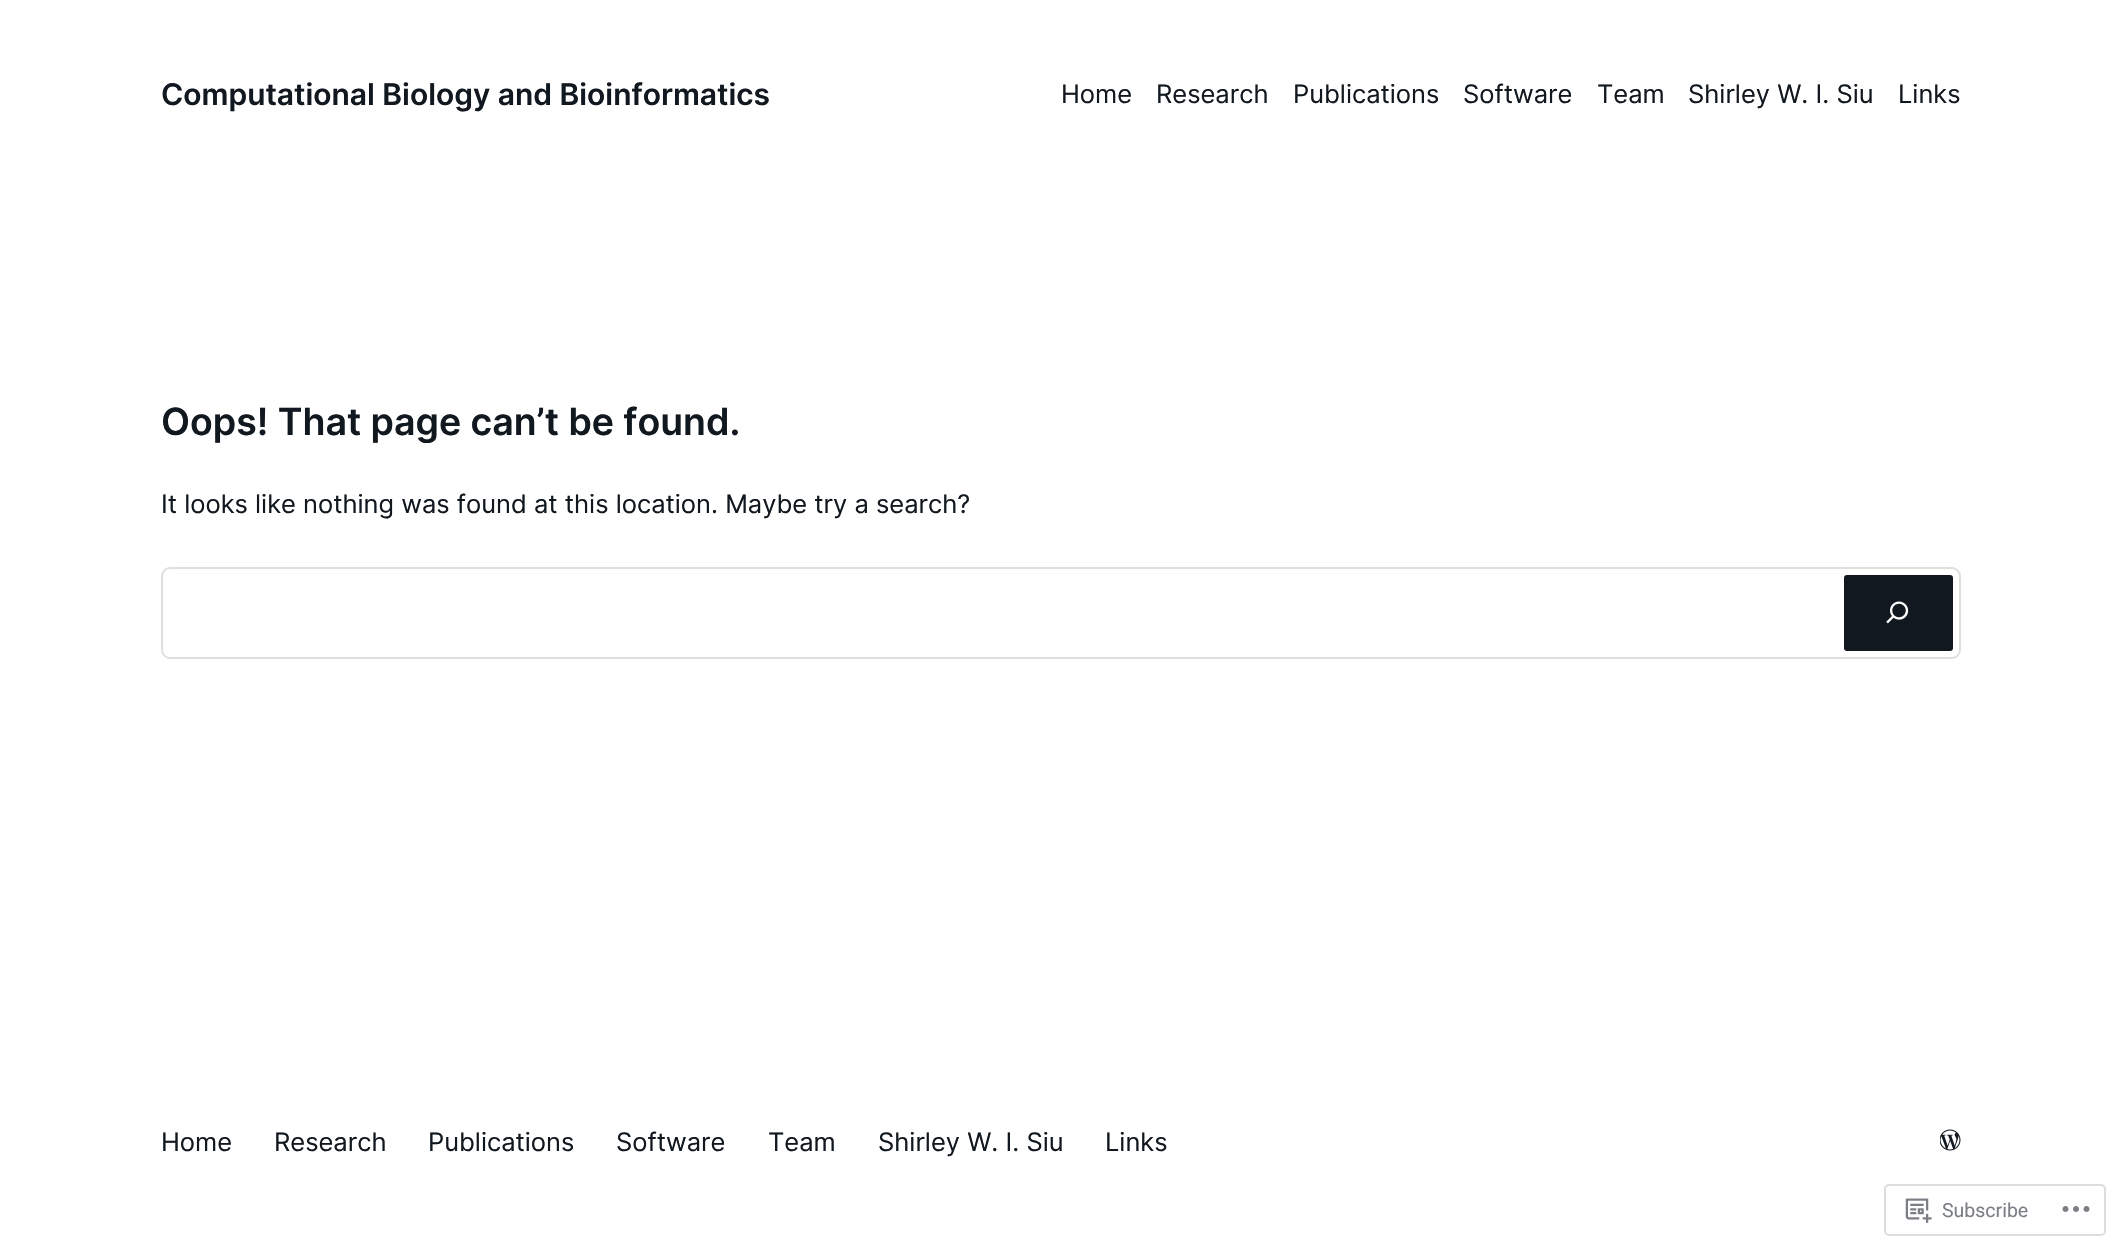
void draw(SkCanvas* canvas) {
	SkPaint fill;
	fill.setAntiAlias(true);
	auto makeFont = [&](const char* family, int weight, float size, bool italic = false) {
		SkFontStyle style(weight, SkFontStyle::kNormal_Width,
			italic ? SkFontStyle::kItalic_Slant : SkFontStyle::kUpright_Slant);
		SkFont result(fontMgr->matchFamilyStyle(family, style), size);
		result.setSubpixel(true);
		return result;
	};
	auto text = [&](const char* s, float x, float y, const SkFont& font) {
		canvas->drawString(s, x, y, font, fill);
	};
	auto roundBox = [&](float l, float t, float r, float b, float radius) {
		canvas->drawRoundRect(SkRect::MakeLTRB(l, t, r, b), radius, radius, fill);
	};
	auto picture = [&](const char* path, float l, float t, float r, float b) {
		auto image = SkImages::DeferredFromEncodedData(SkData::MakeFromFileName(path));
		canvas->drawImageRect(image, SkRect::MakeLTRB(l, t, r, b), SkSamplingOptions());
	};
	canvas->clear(0xFFFFFFFF);
	fill.setStyle(SkPaint::kStroke_Style);
	fill.setStrokeWidth(2);
	fill.setColor(0xFFDFDFDF);
	canvas->drawRoundRect(SkRect::MakeLTRB(162, 568, 1960, 658), 8, 8, fill);
	fill.setStyle(SkPaint::kFill_Style);
	fill.setColor(0xFF11181F);
	roundBox(1844, 575, 1953, 651, 3);
	picture("image0.png", 1886, 601, 1909, 624);
	picture("image1.png", 1940, 1129, 1961, 1151);
	fill.setStyle(SkPaint::kStroke_Style);
	fill.setColor(0xFFDDDDDF);
	canvas->drawRoundRect(SkRect::MakeLTRB(1885, 1185, 2105, 1235), 4, 4, fill);
	picture("image2.png", 1905, 1198, 1932, 1223);
	picture("image3.png", 2062, 1206, 2090, 1212);
	auto font1 = makeFont("Inter", 600, 30);
	fill.setStyle(SkPaint::kFill_Style);
	fill.setColor(0xFF11181F);
	text("Computational Biology and Bioinformatics", 161, 105, font1);
	auto font2 = makeFont("Inter", 400, 25.5f);
	text("Home", 1061, 103, font2);
	text("Research", 1156, 103, font2);
	text("Publications", 1293, 103, font2);
	text("Software", 1463, 103, font2);
	text("Team", 1597, 103, font2);
	text("Shirley W. I. Siu", 1688, 103, font2);
	text("Links", 1898, 103, font2);
	auto font3 = makeFont("Inter", 600, 37.5f);
	text("Oops! That page can’t be found.", 161, 435, font3);
	text("It looks like nothing was found at this location. Maybe try a search?", 161, 513, font2);
	text("Home", 161, 1151, font2);
	text("Research", 274, 1151, font2);
	text("Publications", 428, 1151, font2);
	text("Software", 616, 1151, font2);
	text("Team", 768, 1151, font2);
	text("Shirley W. I. Siu", 878, 1151, font2);
	text("Links", 1105, 1151, font2);
	auto font4 = makeFont("Roboto", 400, 19.5f);
	fill.setColor(0xFF7B7F85);
	text("Subscribe", 1942, 1217, font4);
}
